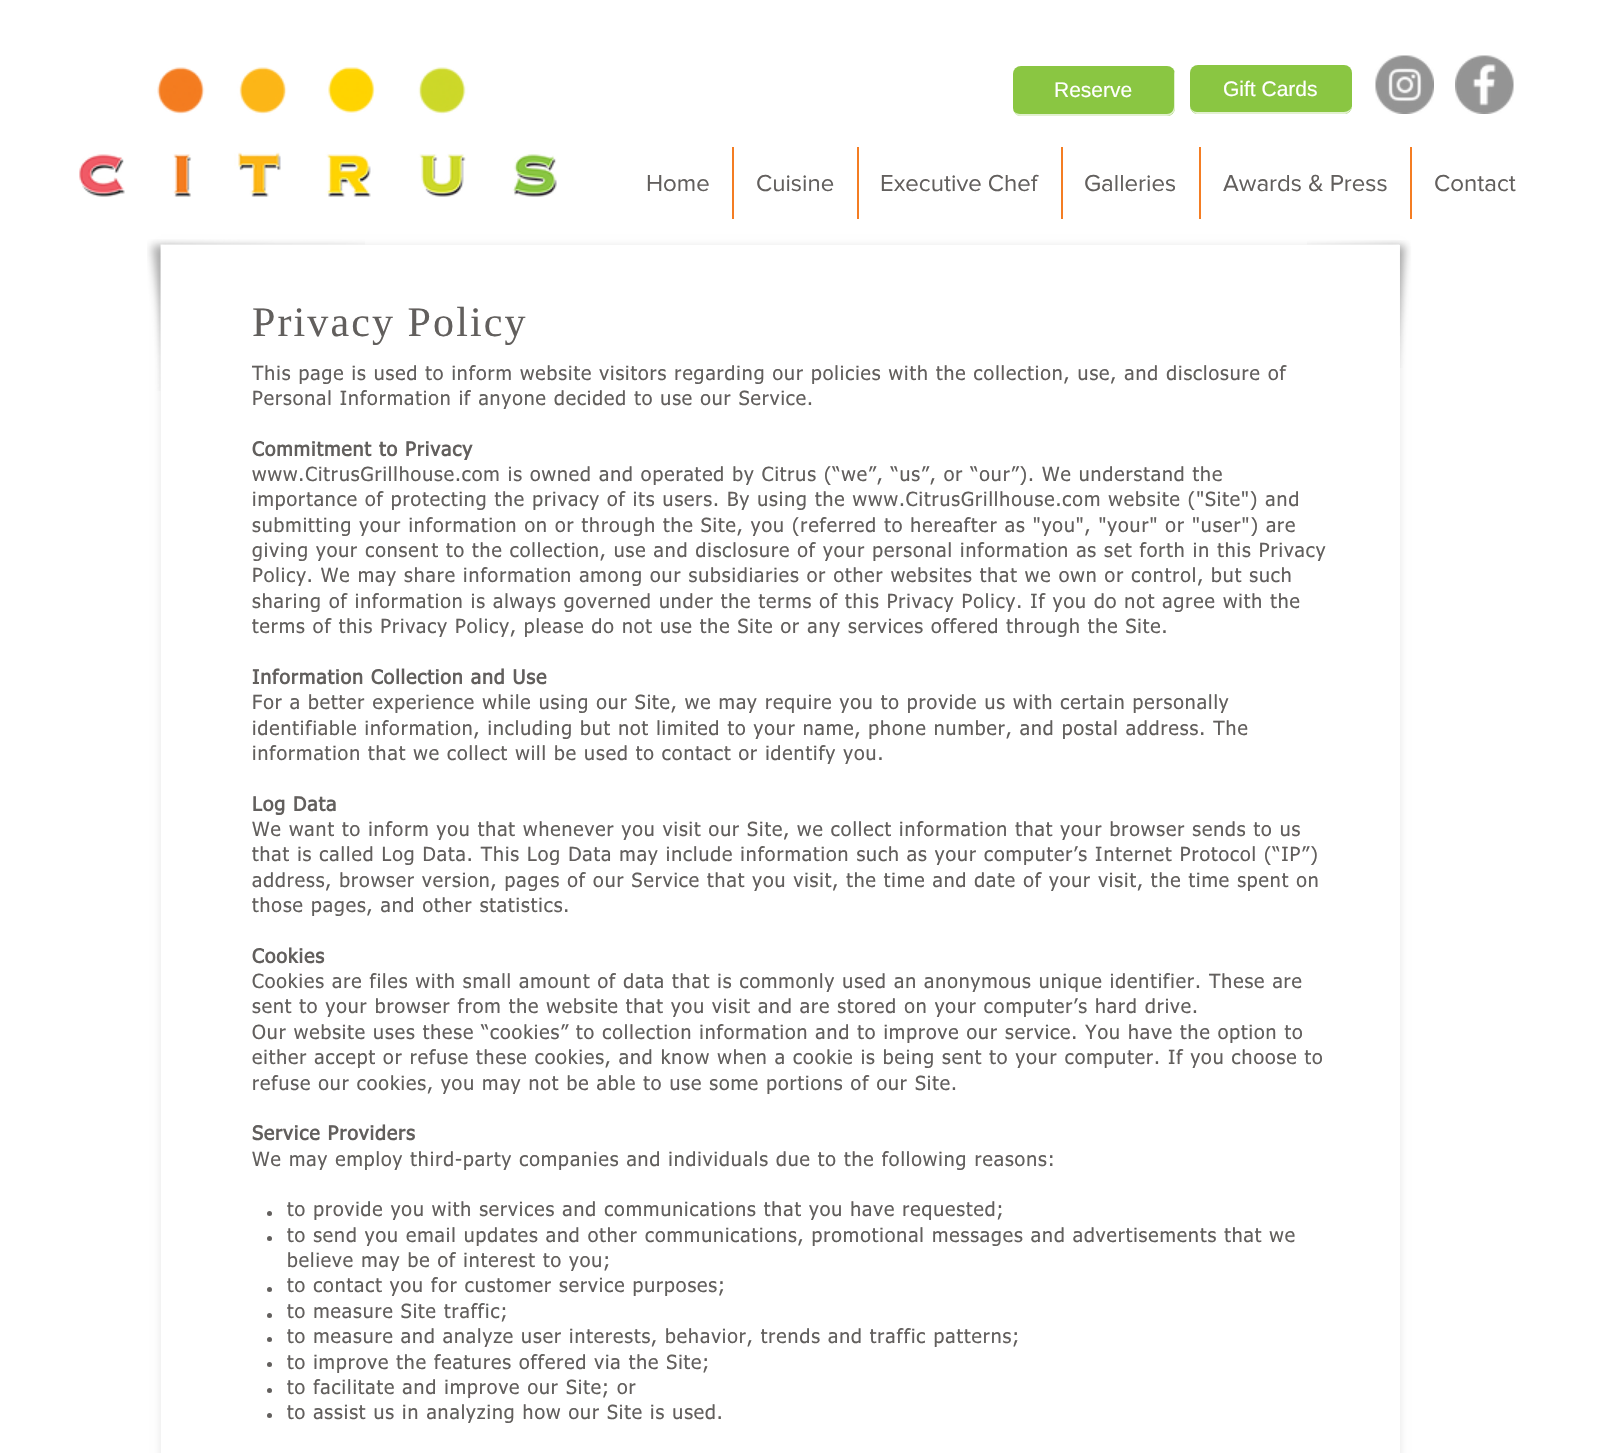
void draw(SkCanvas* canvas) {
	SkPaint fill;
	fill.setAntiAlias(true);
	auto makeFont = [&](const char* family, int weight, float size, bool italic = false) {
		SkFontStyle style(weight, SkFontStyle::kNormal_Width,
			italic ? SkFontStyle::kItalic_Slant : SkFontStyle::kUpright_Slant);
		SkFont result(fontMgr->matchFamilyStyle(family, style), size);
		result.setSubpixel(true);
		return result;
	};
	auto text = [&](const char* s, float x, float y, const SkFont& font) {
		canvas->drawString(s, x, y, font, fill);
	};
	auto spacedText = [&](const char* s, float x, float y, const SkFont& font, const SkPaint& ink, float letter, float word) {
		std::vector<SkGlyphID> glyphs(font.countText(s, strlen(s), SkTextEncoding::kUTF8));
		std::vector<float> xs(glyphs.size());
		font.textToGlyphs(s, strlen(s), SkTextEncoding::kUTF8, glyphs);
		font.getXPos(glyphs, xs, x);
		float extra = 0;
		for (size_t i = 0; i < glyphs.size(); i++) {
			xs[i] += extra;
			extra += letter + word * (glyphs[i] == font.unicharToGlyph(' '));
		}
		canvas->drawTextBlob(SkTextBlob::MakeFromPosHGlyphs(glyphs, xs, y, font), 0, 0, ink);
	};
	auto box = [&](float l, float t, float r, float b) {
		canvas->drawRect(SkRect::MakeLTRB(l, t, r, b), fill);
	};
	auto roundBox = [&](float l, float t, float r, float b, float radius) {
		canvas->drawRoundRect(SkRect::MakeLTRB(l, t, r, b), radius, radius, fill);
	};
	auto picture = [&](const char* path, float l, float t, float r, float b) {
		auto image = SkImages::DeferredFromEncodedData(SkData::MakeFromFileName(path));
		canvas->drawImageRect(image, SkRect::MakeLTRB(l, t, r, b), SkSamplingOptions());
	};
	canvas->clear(0xFFFFFFFF);
	picture("image0.png", 79, 67, 557, 197);
	fill.setColor(0xFF8AC642);
	roundBox(1013, 66, 1175, 116, 8);
	fill.setColor(0xBFFFFFFF);
	canvas->drawPath(SkPathBuilder().moveTo(1013, 111).cubicTo(1015, 114, 1018, 116, 1021, 116).lineTo(1167, 116).cubicTo(1171, 116, 1175, 112, 1175, 108).lineTo(1175, 74).cubicTo(1175, 72, 1174, 71, 1174, 70).lineTo(1174, 72).lineTo(1174, 106).cubicTo(1174, 111, 1171, 114, 1167, 114).lineTo(1020, 114).cubicTo(1018, 114, 1015, 113, 1013, 111).close().detach(), fill);
	fill.setColor(0xFF8AC642);
	roundBox(1190, 65, 1352, 114, 8);
	fill.setColor(0xBFFFFFFF);
	canvas->drawPath(SkPathBuilder().moveTo(1190, 105).cubicTo(1190, 120, 1216, 114, 1222, 114).lineTo(1320, 114).cubicTo(1326, 114, 1352, 120, 1352, 105).cubicTo(1352, 109, 1348, 112, 1344, 112).lineTo(1197, 112).cubicTo(1193, 112, 1190, 109, 1190, 105).close().detach(), fill);
	picture("image1.png", 1375, 55, 1434, 114);
	picture("image2.png", 1455, 55, 1514, 114);
	fill.setColor(0xFFF47D23);
	box(732, 147, 734, 219);
	box(857, 147, 859, 219);
	box(1061, 147, 1063, 219);
	box(1199, 147, 1201, 219);
	box(1410, 147, 1412, 219);
	picture("image3.png", 147, 239, 365, 391);
	picture("image4.png", 1307, 240, 1411, 368);
	canvas->save();
	canvas->clipPath(SkPathBuilder(SkPathFillType::kEvenOdd).moveTo(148, 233).lineTo(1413, 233).lineTo(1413, 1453).lineTo(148, 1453).close().moveTo(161, 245).lineTo(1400, 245).lineTo(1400, 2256).lineTo(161, 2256).close().detach(), true);
	fill.setColor(0x1A000000);
	fill.setMaskFilter(SkMaskFilter::MakeBlur(kNormal_SkBlurStyle, 4));
	canvas->drawRect(SkRect::MakeLTRB(161, 246, 1400, 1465), fill);
	fill.setMaskFilter(nullptr);
	canvas->restore();
	fill.setColor(0xF2FFFFFF);
	box(1399, 245, 1400, 1453);
	fill.setColor(0xFF625F5D);
	canvas->drawCircle(269.5f, 1213.5f, 2.5f, fill);
	canvas->drawCircle(269.5f, 1238.5f, 2.5f, fill);
	canvas->drawCircle(269.5f, 1289.5f, 2.5f, fill);
	canvas->drawCircle(269.5f, 1315.5f, 2.5f, fill);
	canvas->drawCircle(269.5f, 1339.5f, 2.5f, fill);
	canvas->drawCircle(269.5f, 1364.5f, 2.5f, fill);
	canvas->drawCircle(269.5f, 1390.5f, 2.5f, fill);
	canvas->drawCircle(269.5f, 1415.5f, 2.5f, fill);
	auto font1 = makeFont("Liberation Sans", 400, 21);
	fill.setColor(0xFFFFFFFF);
	text("Reserve", 1054, 97, font1);
	text("Gift Cards", 1223, 96, font1);
	auto font2 = makeFont("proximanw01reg", 400, 24);
	fill.setColor(0xFF625F5D);
	text("Home", 646, 191, font2);
	text("Cuisine", 756, 191, font2);
	text("Executive Chef", 880, 191, font2);
	text("Galleries", 1084, 191, font2);
	text("Awards & Press", 1223, 191, font2);
	text("Contact", 1434, 191, font2);
	auto font3 = makeFont("Liberation Serif", 400, 42);
	spacedText("Privacy Policy", 252, 336, font3, fill, 2.1f, 0);
	auto font4 = makeFont("tahoma", 400, 19.5f);
	spacedText("This page is used to inform website visitors regarding our policies with the collection, use, and disclosure of", 252, 380, font4, fill, 0.98f, 0);
	spacedText("Personal Information if anyone decided to use our Service.", 252, 405, font4, fill, 0.98f, 0);
	auto font5 = makeFont("tahoma", 700, 19.5f);
	spacedText("Commitment to Privacy", 252, 456, font5, fill, 0.98f, 0);
	spacedText("www.CitrusGrillhouse.com is owned and operated by Citrus (“we”, “us”, or “our”). We understand the", 252, 481, font4, fill, 0.98f, 0);
	spacedText("importance of protecting the privacy of its users. By using the www.CitrusGrillhouse.com website (\"Site\") and", 252, 506, font4, fill, 0.98f, 0);
	spacedText("submitting your information on or through the Site, you (referred to hereafter as \"you\", \"your\" or \"user\") are", 252, 532, font4, fill, 0.98f, 0);
	spacedText("giving your consent to the collection, use and disclosure of your personal information as set forth in this Privacy", 252, 557, font4, fill, 0.98f, 0);
	spacedText("Policy. We may share information among our subsidiaries or other websites that we own or control, but such", 252, 582, font4, fill, 0.98f, 0);
	spacedText("sharing of information is always governed under the terms of this Privacy Policy. If you do not agree with the", 252, 608, font4, fill, 0.98f, 0);
	spacedText("terms of this Privacy Policy, please do not use the Site or any services offered through the Site.", 252, 633, font4, fill, 0.98f, 0);
	spacedText("Information Collection and Use", 252, 684, font5, fill, 0.98f, 0);
	spacedText("For a better experience while using our Site, we may require you to provide us with certain personally", 252, 709, font4, fill, 0.98f, 0);
	spacedText("identifiable information, including but not limited to your name, phone number, and postal address. The", 252, 735, font4, fill, 0.98f, 0);
	spacedText("information that we collect will be used to contact or identify you.", 252, 760, font4, fill, 0.98f, 0);
	spacedText("Log Data", 252, 811, font5, fill, 0.98f, 0);
	spacedText("We want to inform you that whenever you visit our Site, we collect information that your browser sends to us", 252, 836, font4, fill, 0.98f, 0);
	spacedText("that is called Log Data. This Log Data may include information such as your computer’s Internet Protocol (“IP”)", 252, 861, font4, fill, 0.98f, 0);
	spacedText("address, browser version, pages of our Service that you visit, the time and date of your visit, the time spent on", 252, 887, font4, fill, 0.98f, 0);
	spacedText("those pages, and other statistics.", 252, 912, font4, fill, 0.98f, 0);
	spacedText("Cookies", 252, 963, font5, fill, 0.98f, 0);
	spacedText("Cookies are files with small amount of data that is commonly used an anonymous unique identifier. These are", 252, 988, font4, fill, 0.98f, 0);
	spacedText("sent to your browser from the website that you visit and are stored on your computer’s hard drive.", 252, 1013, font4, fill, 0.98f, 0);
	spacedText("Our website uses these “cookies” to collection information and to improve our service. You have the option to", 252, 1039, font4, fill, 0.98f, 0);
	spacedText("either accept or refuse these cookies, and know when a cookie is being sent to your computer. If you choose to", 252, 1064, font4, fill, 0.98f, 0);
	spacedText("refuse our cookies, you may not be able to use some portions of our Site.", 252, 1090, font4, fill, 0.98f, 0);
	spacedText("Service Providers", 252, 1140, font5, fill, 0.98f, 0);
	spacedText("We may employ third-party companies and individuals due to the following reasons:", 252, 1166, font4, fill, 0.98f, 0);
	spacedText("to provide you with services and communications that you have requested;", 287, 1216, font4, fill, 0.98f, 0);
	spacedText("to send you email updates and other communications, promotional messages and advertisements that we", 287, 1242, font4, fill, 0.98f, 0);
	spacedText("believe may be of interest to you;", 287, 1267, font4, fill, 0.98f, 0);
	spacedText("to contact you for customer service purposes;", 287, 1292, font4, fill, 0.98f, 0);
	spacedText("to measure Site traffic;", 287, 1318, font4, fill, 0.98f, 0);
	spacedText("to measure and analyze user interests, behavior, trends and traffic patterns;", 287, 1343, font4, fill, 0.98f, 0);
	spacedText("to improve the features offered via the Site;", 287, 1369, font4, fill, 0.98f, 0);
	spacedText("to facilitate and improve our Site; or", 287, 1394, font4, fill, 0.98f, 0);
	spacedText("to assist us in analyzing how our Site is used.", 287, 1419, font4, fill, 0.98f, 0);
}
